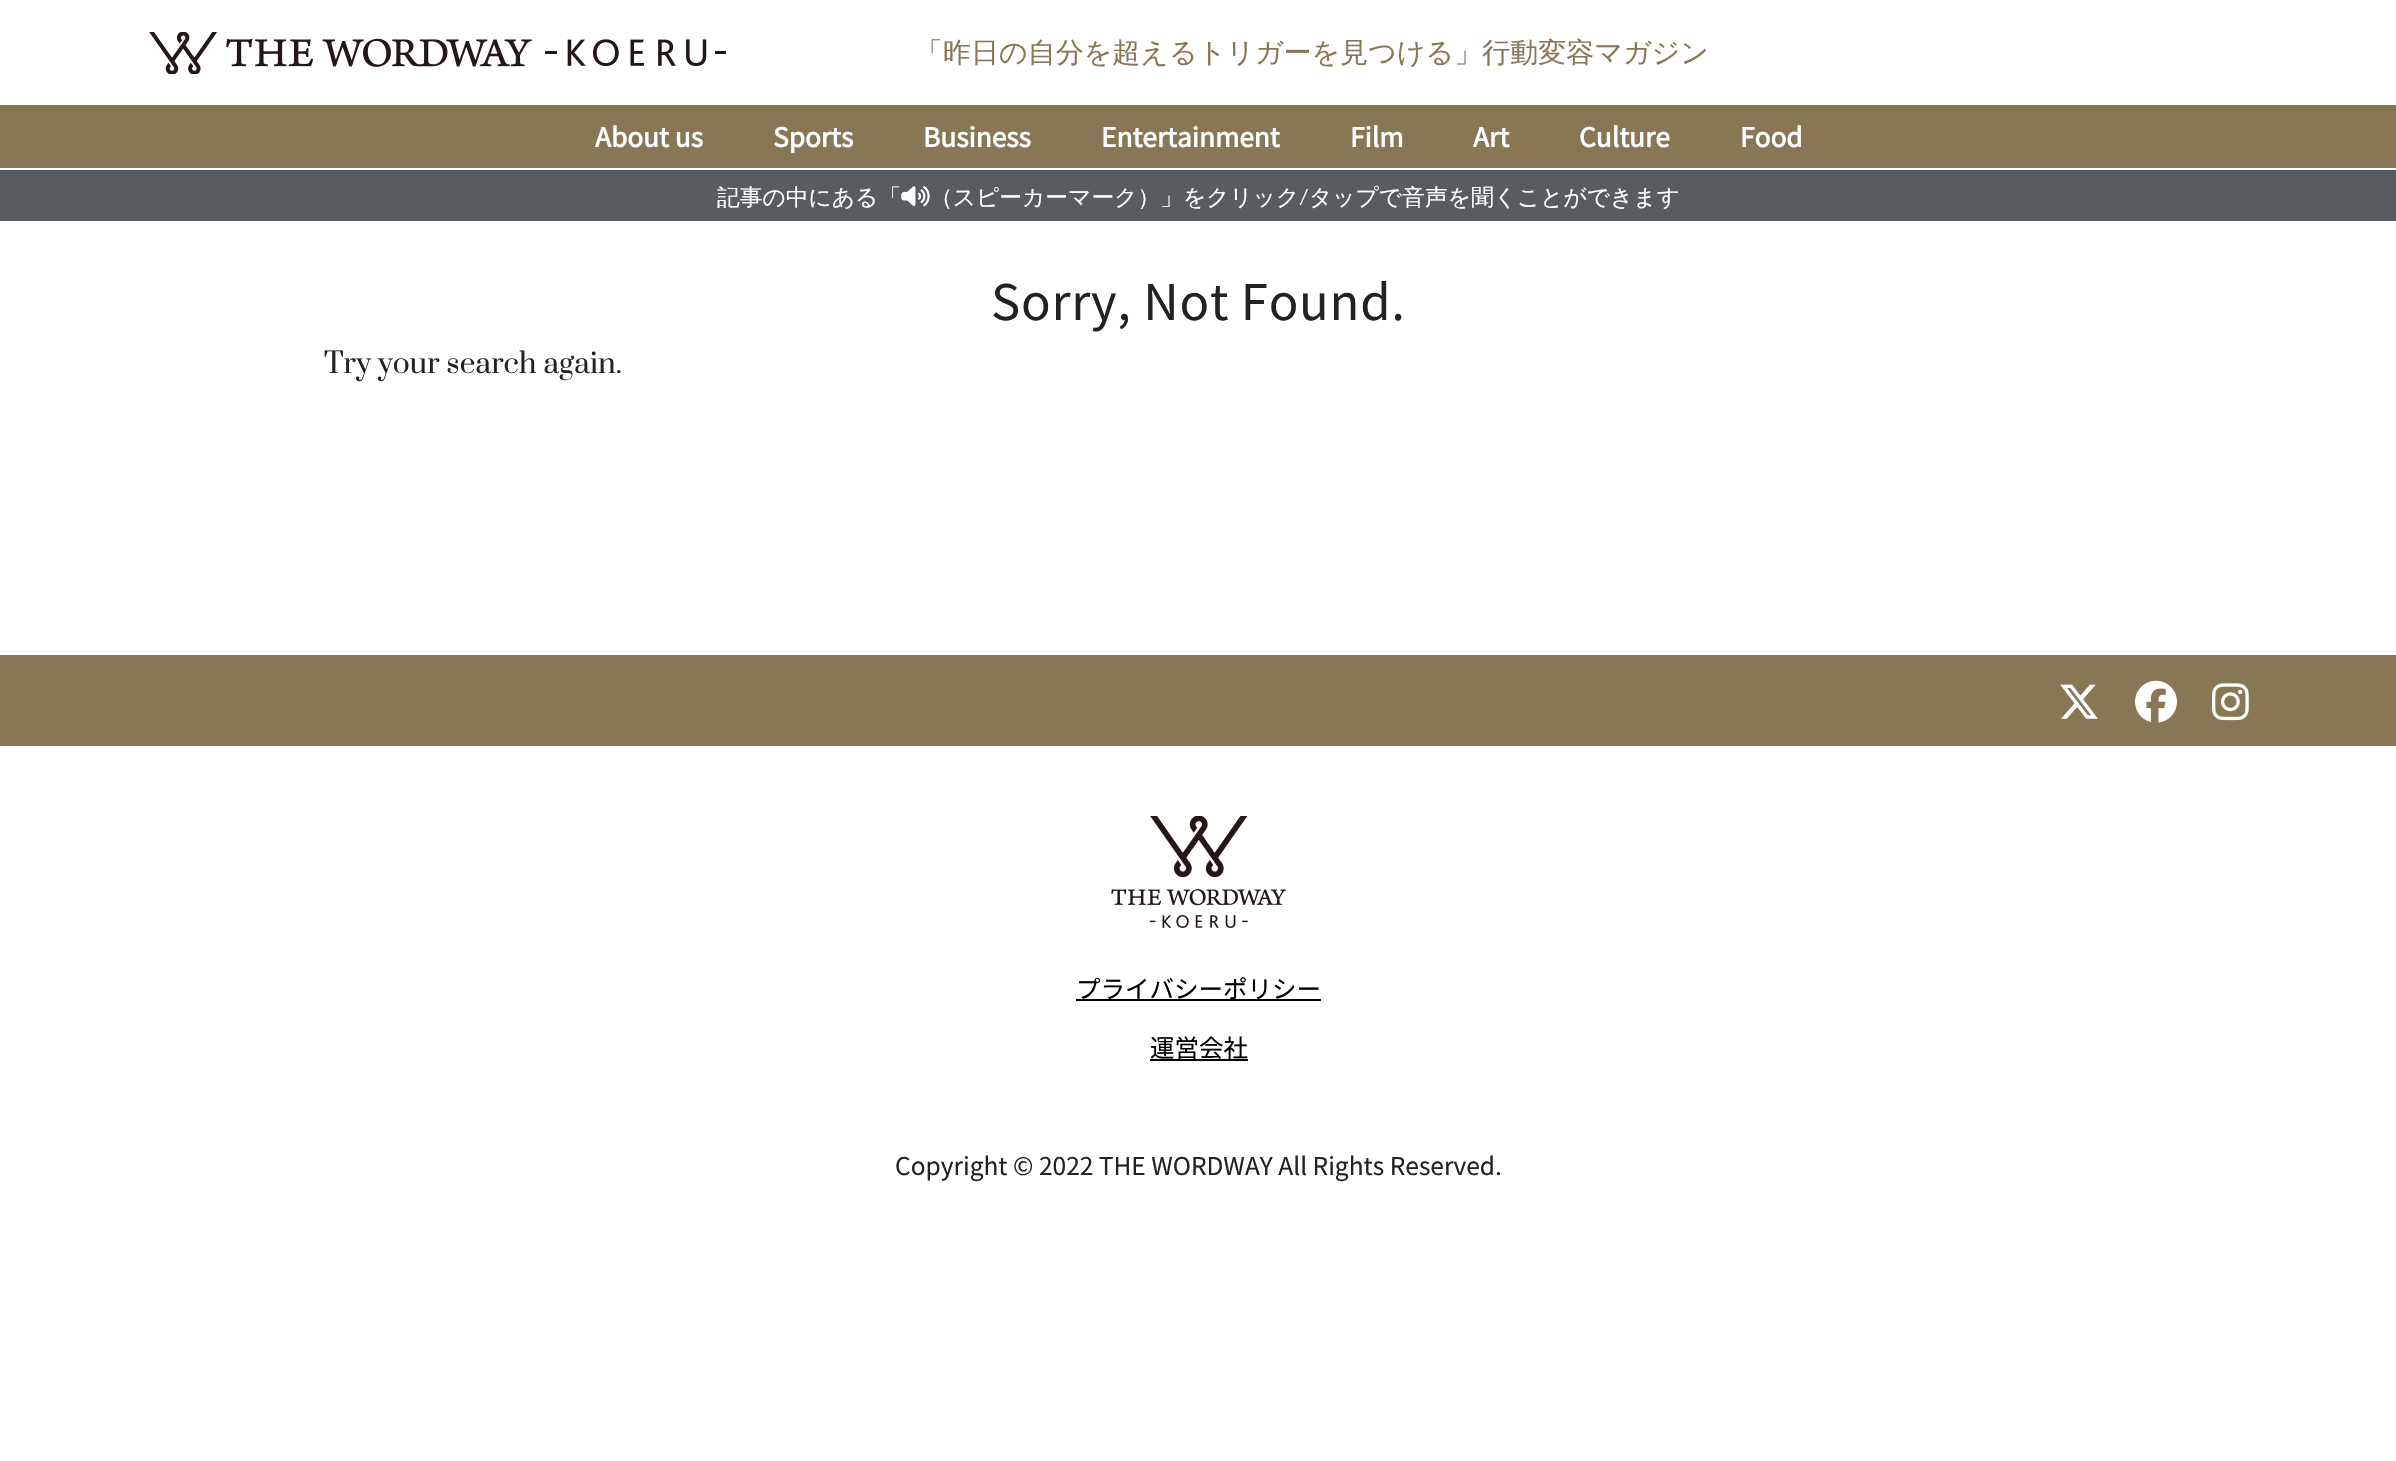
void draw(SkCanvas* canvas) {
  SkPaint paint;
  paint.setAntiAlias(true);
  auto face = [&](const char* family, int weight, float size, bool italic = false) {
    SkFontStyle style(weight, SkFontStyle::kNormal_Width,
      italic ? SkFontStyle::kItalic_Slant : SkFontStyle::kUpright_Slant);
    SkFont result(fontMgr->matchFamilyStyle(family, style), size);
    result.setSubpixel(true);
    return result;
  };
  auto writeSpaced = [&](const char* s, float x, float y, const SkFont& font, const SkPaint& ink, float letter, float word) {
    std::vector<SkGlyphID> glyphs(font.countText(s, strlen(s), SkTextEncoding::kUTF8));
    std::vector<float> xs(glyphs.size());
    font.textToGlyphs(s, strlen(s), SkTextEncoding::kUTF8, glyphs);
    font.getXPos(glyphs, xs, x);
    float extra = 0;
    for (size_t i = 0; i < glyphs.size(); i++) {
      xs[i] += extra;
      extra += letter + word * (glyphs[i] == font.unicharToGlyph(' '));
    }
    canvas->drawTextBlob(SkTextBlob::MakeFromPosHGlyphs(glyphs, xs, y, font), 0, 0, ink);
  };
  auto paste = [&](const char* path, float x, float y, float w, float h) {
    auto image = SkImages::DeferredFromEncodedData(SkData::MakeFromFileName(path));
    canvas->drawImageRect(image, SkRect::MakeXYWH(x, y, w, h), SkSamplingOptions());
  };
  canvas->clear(0xffffffff);
  paste("img/1.png", 149, 32, 577, 42);
  paint.setColor(0xff897655);
  canvas->drawRect(SkRect::MakeXYWH(0, 105, 2396, 63), paint);
  paint.setColor(0xff595c5f);
  canvas->drawRect(SkRect::MakeXYWH(0, 170, 2396, 51), paint);
  paste("img/2.png", 901, 186, 29, 21);
  paint.setColor(0xff897655);
  canvas->drawRect(SkRect::MakeXYWH(0, 655, 2396, 91), paint);
  paste("img/3.png", 2060, 684, 38, 35);
  paste("img/4.png", 2135, 680, 42, 43);
  paste("img/5.png", 2212, 683, 37, 38);
  paste("img/6.png", 1111, 816, 175, 112);
  paint.setColor(0xff000000);
  canvas->drawRect(SkRect::MakeXYWH(1076, 999, 245, 2), paint);
  canvas->drawRect(SkRect::MakeXYWH(1150, 1059, 98, 2), paint);
  auto f0 = face("WenQuanYi Zen Hei", 500, 28);
  paint.setColor(0xff897655);
  canvas->drawString("「昨日の自分を超えるトリガーを見つける」行動変容マガジン", 915, 62, f0, paint);
  auto f1 = face("Noto Sans JP", 700, 26.25f);
  paint.setColor(0xffffffff);
  {
    const struct { const char* s; float x, y; } items[] = {
      {"About us", 595, 147},
      {"Sports", 773, 147},
      {"Business", 923, 147},
      {"Entertainment", 1101, 147},
      {"Film", 1350, 147},
      {"Art", 1473, 147},
      {"Culture", 1579, 147},
      {"Food", 1740, 147},
    };
    for (auto [s, x, y] : items) {
      canvas->drawString(s, x, y, f1, paint);
    }
  }
  auto f2 = face("WenQuanYi Zen Hei", 500, 22.75f);
  canvas->drawString("記事の中にある「", 717, 205, f2, paint);
  canvas->drawString("（スピーカーマーク）」をクリック", 930, 205, f2, paint);
  auto f3 = face("Prata", 400, 22.75f);
  canvas->drawString("/", 1299, 205, f3, paint);
  canvas->drawString("タップで音声を聞くことができます", 1309, 205, f2, paint);
  auto f4 = face("Noto Sans JP", 100, 49);
  paint.setColor(0xff222222);
  writeSpaced("Sorry, Not Found.", 991, 320, f4, paint, 0.75f, 0);
  auto f5 = face("Prata", 400, 28);
  canvas->drawString("Try your search again.", 324, 373, f5, paint);
  auto f6 = face("Noto Sans JP", 100, 24.5f);
  paint.setColor(0xff000000);
  canvas->drawString("プライバシーポリシー", 1076, 998, f6, paint);
  canvas->drawString("運営会社", 1150, 1057, f6, paint);
  paint.setColor(0xff222222);
  canvas->drawString("Copyright © 2022 THE WORDWAY All Rights Reserved.", 895, 1175, f6, paint);
}
